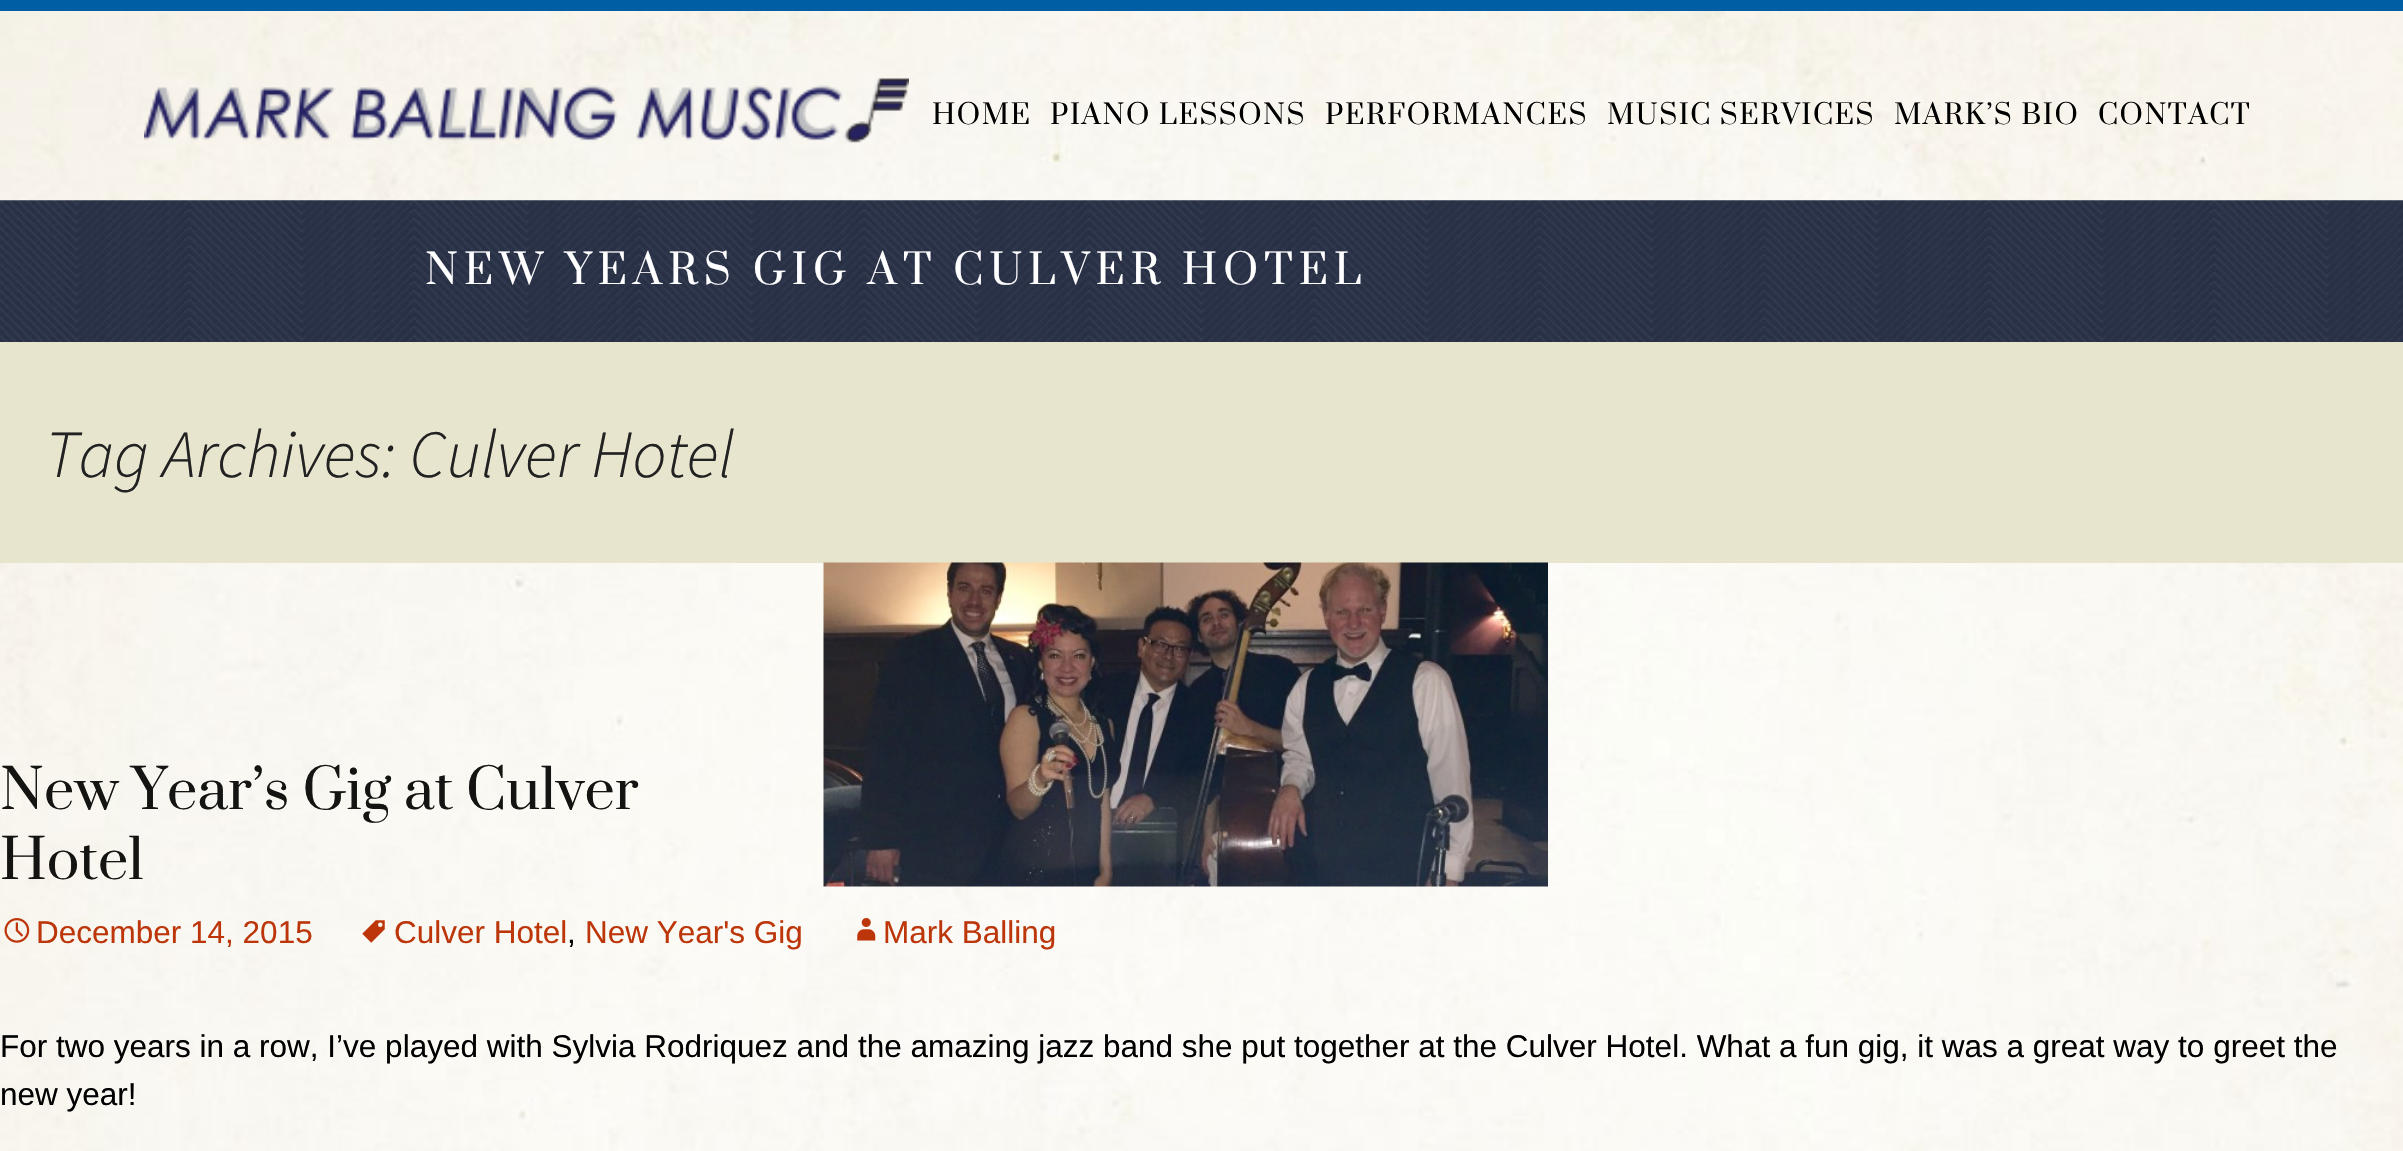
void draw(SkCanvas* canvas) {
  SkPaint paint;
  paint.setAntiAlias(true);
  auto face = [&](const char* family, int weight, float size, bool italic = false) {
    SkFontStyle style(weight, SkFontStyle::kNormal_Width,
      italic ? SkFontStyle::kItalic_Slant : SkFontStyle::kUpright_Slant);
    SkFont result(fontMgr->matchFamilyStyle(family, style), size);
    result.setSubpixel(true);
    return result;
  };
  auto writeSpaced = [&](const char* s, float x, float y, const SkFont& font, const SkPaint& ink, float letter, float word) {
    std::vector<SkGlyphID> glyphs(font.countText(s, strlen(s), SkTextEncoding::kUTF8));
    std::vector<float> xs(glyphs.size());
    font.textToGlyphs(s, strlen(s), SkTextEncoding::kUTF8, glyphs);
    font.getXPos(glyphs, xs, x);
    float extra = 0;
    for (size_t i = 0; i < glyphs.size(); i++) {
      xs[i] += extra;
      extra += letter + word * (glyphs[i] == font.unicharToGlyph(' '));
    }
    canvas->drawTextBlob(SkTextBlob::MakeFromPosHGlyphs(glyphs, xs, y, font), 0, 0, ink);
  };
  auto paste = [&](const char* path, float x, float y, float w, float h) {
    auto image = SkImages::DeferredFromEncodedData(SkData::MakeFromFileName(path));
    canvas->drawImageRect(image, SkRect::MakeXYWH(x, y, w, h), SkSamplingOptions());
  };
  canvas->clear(0xffffffff);
  paste("img/1.png", 0, 11, 2403, 1140);
  paint.setColor(0xff005ea4);
  canvas->drawRect(SkRect::MakeXYWH(0, 0, 2403, 11), paint);
  paste("img/2.png", 144, 78, 765, 65);
  paste("img/3.png", 0, 200, 2403, 142);
  paint.setColor(0xffe8e5ce);
  canvas->drawRect(SkRect::MakeXYWH(0, 342, 2403, 221), paint);
  paste("img/4.png", 823, 562, 725, 325);
  paste("img/5.png", 4, 918, 26, 25);
  paste("img/6.png", 362, 920, 23, 23);
  paste("img/7.png", 857, 918, 19, 23);
  auto f0 = face("Prata", 400, 27);
  paint.setColor(0xff000000);
  {
    const struct { const char* s; float x, y; } items[] = {
      {"HOME", 932, 124},
      {"PIANO LESSONS", 1050, 124},
      {"PERFORMANCES", 1325, 124},
      {"MUSIC SERVICES", 1607, 124},
      {"MARK’S BIO", 1894, 124},
      {"CONTACT", 2098, 124},
    };
    for (auto [s, x, y] : items) {
      writeSpaced(s, x, y, f0, paint, 1.5f, 0);
    }
  }
  auto f1 = face("Prata", 400, 40.5f);
  paint.setColor(0xffffffff);
  writeSpaced("NEW YEARS GIG AT CULVER HOTEL", 425, 284, f1, paint, 6.1f, 0);
  auto f2 = face("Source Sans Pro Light", 300, 67.5f, true);
  paint.setColor(0xff222222);
  canvas->drawString("Tag Archives: Culver Hotel", 45, 477, f2, paint);
  auto f3 = face("Prata", 400, 54);
  paint.setColor(0xff141412);
  canvas->drawString("New Year’s Gig at Culver", 0, 809, f3, paint);
  canvas->drawString("Hotel", 0, 879, f3, paint);
  auto f4 = face("Liberation Sans", 400, 31.5f);
  paint.setColor(0xffbc360a);
  canvas->drawString("December 14, 2015", 36, 943, f4, paint);
  canvas->drawString("Culver Hotel", 394, 943, f4, paint);
  paint.setColor(0xff000000);
  canvas->drawString(",", 567, 943, f4, paint);
  paint.setColor(0xffbc360a);
  canvas->drawString("New Year's Gig", 585, 943, f4, paint);
  canvas->drawString("Mark Balling", 883, 943, f4, paint);
  paint.setColor(0xff000000);
  canvas->drawString("For two years in a row, I’ve played with Sylvia Rodriquez and the amazing jazz band she put together at the Culver Hotel. What a fun gig, it was a great way to greet the", 0, 1057, f4, paint);
  canvas->drawString("new year!", 0, 1105, f4, paint);
}
